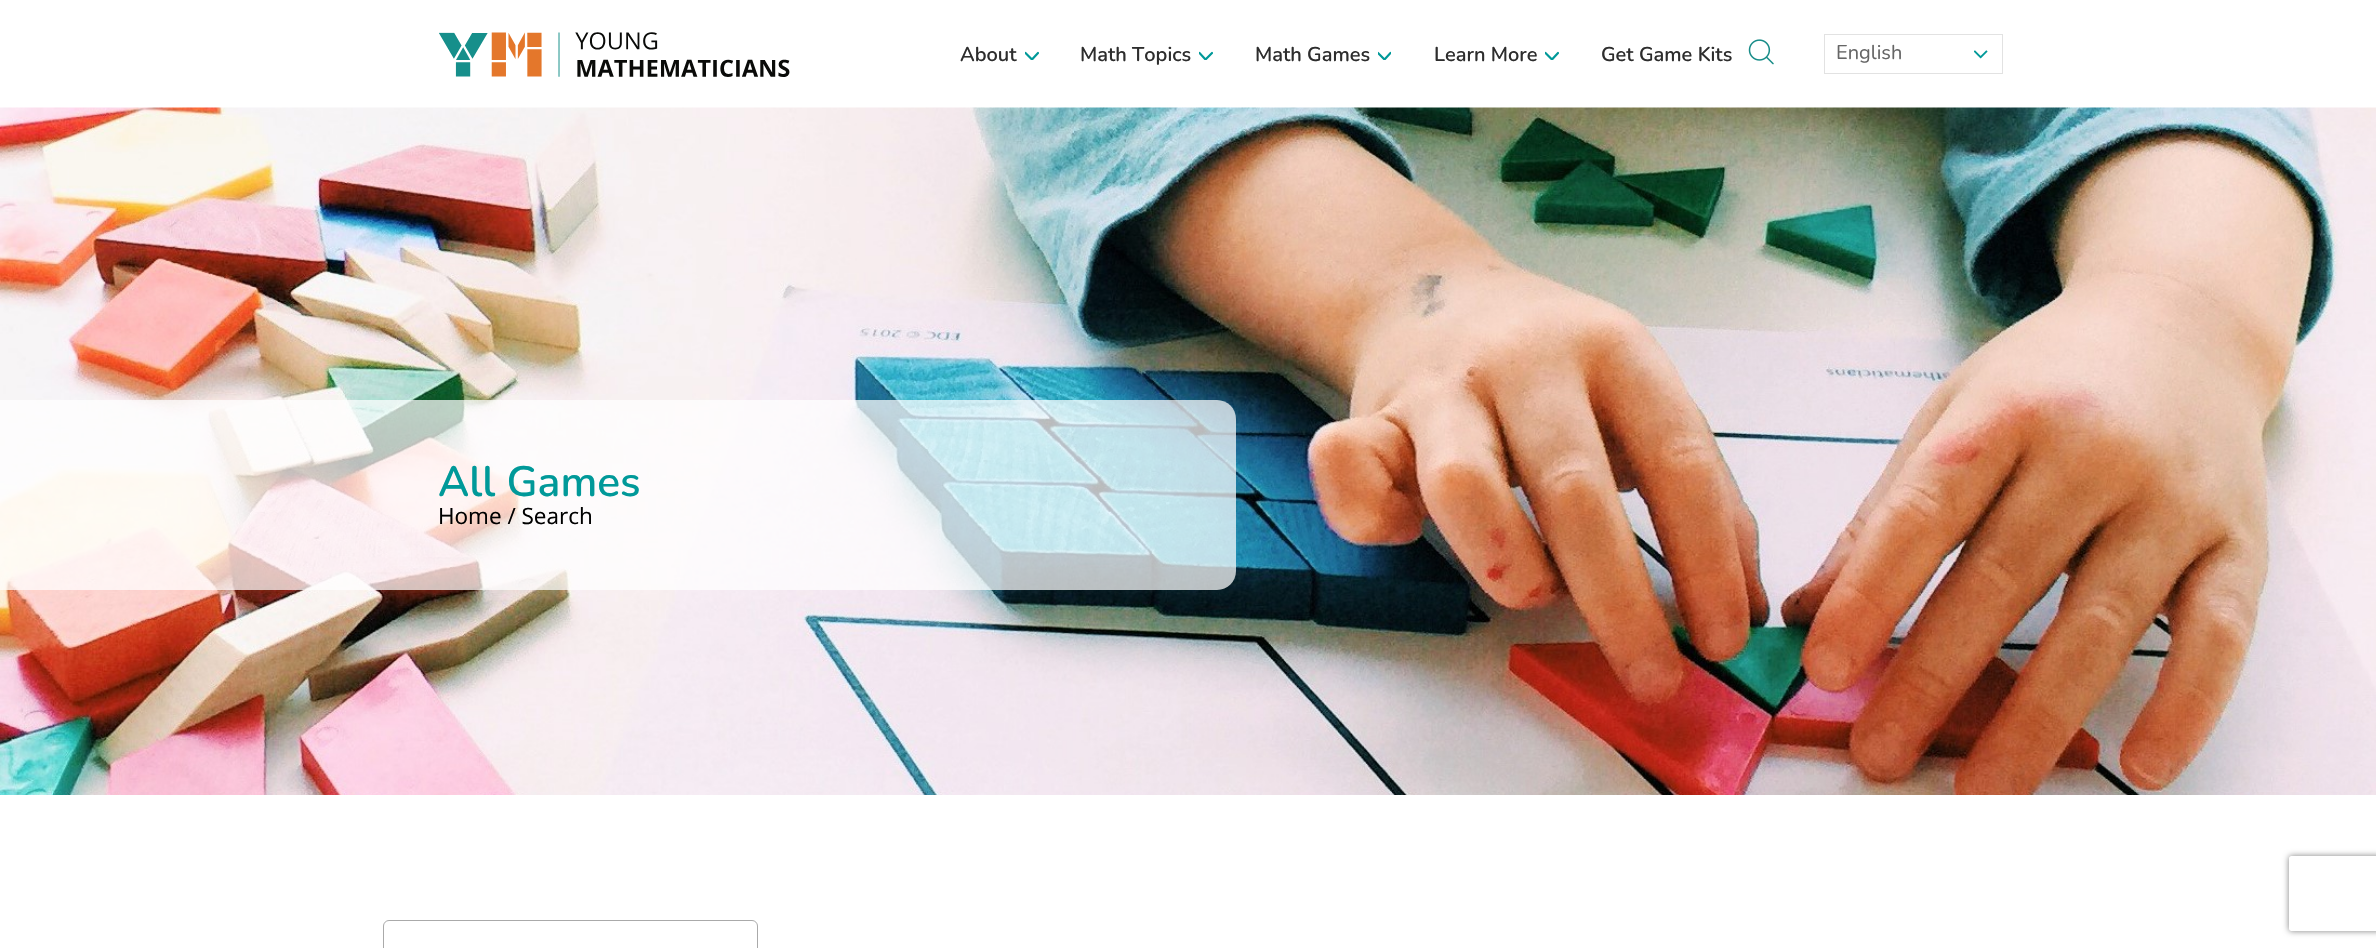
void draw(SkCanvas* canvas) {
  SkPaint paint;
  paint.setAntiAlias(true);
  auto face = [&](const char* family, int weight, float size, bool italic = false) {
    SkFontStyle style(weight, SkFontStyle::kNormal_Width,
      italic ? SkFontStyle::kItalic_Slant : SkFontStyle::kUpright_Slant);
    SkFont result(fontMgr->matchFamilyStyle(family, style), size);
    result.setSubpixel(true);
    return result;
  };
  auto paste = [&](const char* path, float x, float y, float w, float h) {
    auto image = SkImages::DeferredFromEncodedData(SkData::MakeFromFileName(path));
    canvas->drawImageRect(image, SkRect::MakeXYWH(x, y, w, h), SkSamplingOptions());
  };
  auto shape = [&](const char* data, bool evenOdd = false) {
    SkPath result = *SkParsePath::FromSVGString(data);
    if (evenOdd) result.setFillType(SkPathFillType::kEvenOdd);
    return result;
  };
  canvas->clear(0xffffffff);
  paste("img/1.png", 439, 32, 351, 45);
  canvas->save();
  canvas->clipRect(SkRect::MakeXYWH(1025, 49, 14, 11));
  paint.setStroke(true);
  paint.setStrokeWidth(2.2f);
  paint.setStrokeCap(SkPaint::kRound_Cap);
  paint.setStrokeJoin(SkPaint::kRound_Join);
  paint.setColor(0xff009999);
  canvas->drawPath(shape("M1038 53L1032 59.5L1025.5 53"), paint);
  canvas->restore();
  canvas->save();
  canvas->clipRect(SkRect::MakeXYWH(1199, 49, 14, 11));
  canvas->drawPath(shape("M1212 53L1205.5 59.5L1199.5 53"), paint);
  canvas->restore();
  canvas->save();
  canvas->clipRect(SkRect::MakeXYWH(1378, 49, 13, 11));
  canvas->drawPath(shape("M1390.5 53L1384.5 59.5L1378 53"), paint);
  canvas->restore();
  canvas->save();
  canvas->clipRect(SkRect::MakeXYWH(1545, 49, 14, 11));
  canvas->drawPath(shape("M1558 53L1552 59.5L1545.5 53"), paint);
  canvas->restore();
  paste("img/2.png", 1748, 39, 26, 26);
  paint.setStrokeWidth(1);
  paint.setStrokeCap(SkPaint::kButt_Cap);
  paint.setStrokeJoin(SkPaint::kMiter_Join);
  paint.setColor(0xffe2e2e2);
  canvas->drawRect(SkRect::MakeXYWH(1824.5f, 34.5f, 178, 39), paint);
  paste("img/3.png", 1974, 50, 14, 9);
  paste("img/4.png", 0, 107, 2376, 688);
  paint.setStroke(false);
  paint.setColor(0xb8ffffff);
  canvas->drawPath(shape("M0 400H1217C1227.5 400 1236 408.5 1236 419V571C1236 581.5 1227.5 590 1217 590H0Z"), paint);
  paint.setStroke(true);
  paint.setColor(0xffaaaaaa);
  canvas->drawRoundRect(SkRect::MakeXYWH(383.5f, 920.5f, 374, 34), 5.5f, 5.5f, paint);
  canvas->save();
  canvas->clipPath(shape("M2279 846H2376V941H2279ZM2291.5 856H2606.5C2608 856 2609 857 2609 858.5V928.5C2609 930 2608 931 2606.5 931H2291.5C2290 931 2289 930 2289 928.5V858.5C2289 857 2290 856 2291.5 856Z", true), true);
  paint.setStroke(false);
  paint.setColor(0xff808080);
  paint.setMaskFilter(SkMaskFilter::MakeBlur(kNormal_SkBlurStyle, 3));
  canvas->drawRoundRect(SkRect::MakeXYWH(2289, 856, 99, 75), 2.5f, 2.5f, paint);
  paint.setMaskFilter(nullptr);
  canvas->restore();
  auto f0 = face("Nunito", 600, 20);
  paint.setColor(0xff2d2d2d);
  {
    const struct { const char* s; float x, y; } items[] = {
      {"About", 960, 61},
      {"Math Topics", 1080, 61},
      {"Math Games", 1255, 61},
      {"Learn More", 1434, 61},
      {"Get Game Kits", 1601, 61},
    };
    for (auto [s, x, y] : items) {
      canvas->drawString(s, x, y, f0, paint);
    }
  }
  auto f1 = face("Nunito", 400, 20);
  paint.setColor(0xff666666);
  canvas->drawString("English", 1836, 59, f1, paint);
  auto f2 = face("Nunito", 600, 42.5f);
  paint.setColor(0xff009999);
  canvas->drawString("All Games", 438, 496, f2, paint);
  auto f3 = face("Open Sans", 400, 22.5f);
  paint.setColor(0xff000000);
  canvas->drawString("Home / Search", 438, 524, f3, paint);
}
